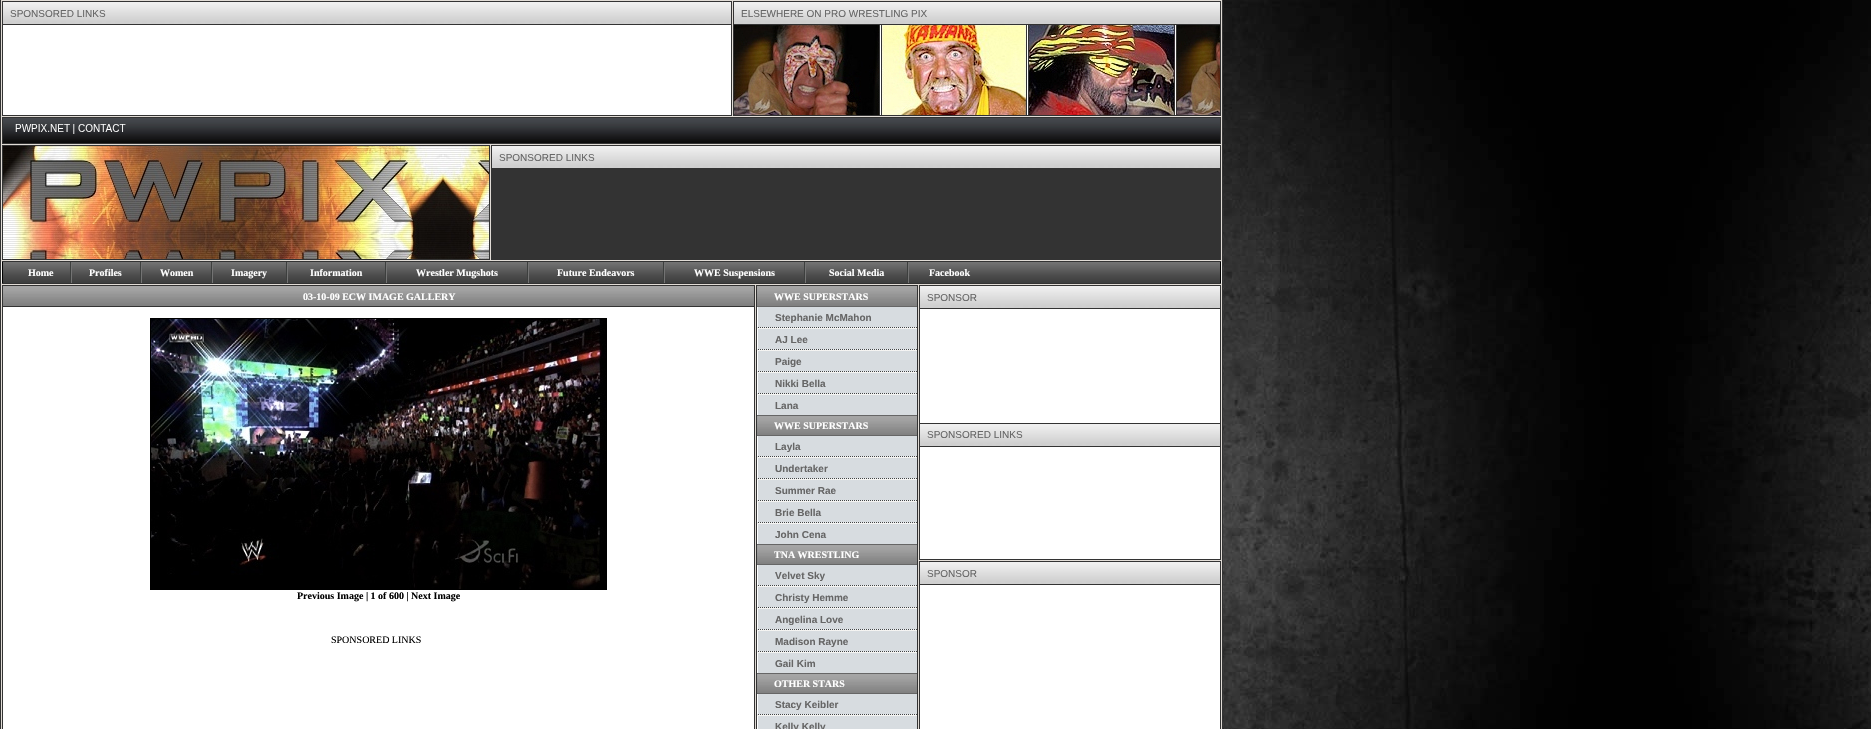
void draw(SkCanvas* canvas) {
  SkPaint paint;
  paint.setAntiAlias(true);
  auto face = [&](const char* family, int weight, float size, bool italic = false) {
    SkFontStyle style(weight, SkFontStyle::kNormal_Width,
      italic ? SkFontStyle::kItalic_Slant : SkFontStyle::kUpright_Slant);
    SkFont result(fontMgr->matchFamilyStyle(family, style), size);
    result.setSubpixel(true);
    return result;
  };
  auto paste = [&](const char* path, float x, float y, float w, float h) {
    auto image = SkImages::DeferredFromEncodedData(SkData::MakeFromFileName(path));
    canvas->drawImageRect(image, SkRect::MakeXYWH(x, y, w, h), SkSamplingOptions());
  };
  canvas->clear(0xffffffff);
  paste("img/1.png", 1223, 0, 648, 729);
  {
    const struct { float x, y, w, h; SkColor color; } items[] = {
      {1, 0, 1221, 729, 0xffe1dcd6},
      {0, 0, 1, 729, 0xff333333},
      {2, 1, 1, 115, 0xff333333},
      {3, 1, 728, 1, 0xff333333},
      {3, 25, 728, 90, 0xffffffff},
    };
    for (auto [x, y, w, h, color] : items) {
      paint.setColor(color);
      canvas->drawRect(SkRect::MakeXYWH(x, y, w, h), paint);
    }
  }
  paste("img/2.png", 3, 2, 728, 22);
  {
    const struct { float x, y, w, h; SkColor color; } items[] = {
      {3, 24, 728, 1, 0xff333333},
      {3, 115, 728, 1, 0xff333333},
      {731, 1, 1, 115, 0xff333333},
      {733, 1, 488, 1, 0xff333333},
      {733, 2, 1, 22, 0xff333333},
    };
    for (auto [x, y, w, h, color] : items) {
      paint.setColor(color);
      canvas->drawRect(SkRect::MakeXYWH(x, y, w, h), paint);
    }
  }
  paste("img/3.png", 734, 2, 486, 22);
  canvas->drawRect(SkRect::MakeXYWH(1220, 2, 1, 22), paint);
  canvas->drawRect(SkRect::MakeXYWH(733, 24, 488, 1), paint);
  paste("img/4.png", 734, 25, 486, 90);
  {
    const struct { float x, y, w, h; SkColor color; } items[] = {
      {733, 25, 1, 90, 0xff333333},
      {879, 25, 1, 90, 0xff333333},
      {881, 25, 1, 90, 0xff333333},
      {1026, 25, 1, 90, 0xff333333},
      {1028, 25, 1, 90, 0xff333333},
      {1220, 25, 1, 90, 0xff333333},
      {733, 115, 488, 1, 0xff333333},
      {1222, 0, 1, 729, 0xff333333},
      {2, 117, 1219, 1, 0xff333333},
      {2, 118, 1, 25, 0xff333333},
    };
    for (auto [x, y, w, h, color] : items) {
      paint.setColor(color);
      canvas->drawRect(SkRect::MakeXYWH(x, y, w, h), paint);
    }
  }
  paste("img/5.png", 3, 118, 1217, 25);
  {
    const struct { float x, y, w, h; SkColor color; } items[] = {
      {1220, 118, 1, 25, 0xff333333},
      {2, 143, 1219, 1, 0xff333333},
      {2, 145, 488, 1, 0xff333333},
      {491, 145, 730, 1, 0xff333333},
      {2, 146, 1, 113, 0xff333333},
    };
    for (auto [x, y, w, h, color] : items) {
      paint.setColor(color);
      canvas->drawRect(SkRect::MakeXYWH(x, y, w, h), paint);
    }
  }
  paste("img/6.png", 3, 146, 486, 113);
  canvas->drawRect(SkRect::MakeXYWH(489, 146, 1, 113), paint);
  canvas->drawRect(SkRect::MakeXYWH(491, 146, 1, 113), paint);
  paste("img/2.png", 492, 146, 728, 22);
  {
    const struct { float x, y, w, h; SkColor color; } items[] = {
      {492, 168, 728, 91, 0xff333333},
      {1220, 146, 1, 113, 0xff333333},
      {2, 259, 488, 1, 0xff333333},
      {491, 259, 730, 1, 0xff333333},
      {2, 261, 1219, 1, 0xff333333},
    };
    for (auto [x, y, w, h, color] : items) {
      paint.setColor(color);
      canvas->drawRect(SkRect::MakeXYWH(x, y, w, h), paint);
    }
  }
  paste("img/7.png", 3, 262, 1217, 21);
  paint.setColor(0xfff0efeb);
  canvas->drawRect(SkRect::MakeXYWH(1, 262, 1, 21), paint);
  paint.setColor(0xff000000);
  canvas->drawRect(SkRect::MakeXYWH(2, 262, 1, 21), paint);
  paste("img/8.png", 70, 262, 2, 21);
  paste("img/8.png", 140, 262, 2, 21);
  paste("img/8.png", 211, 262, 2, 21);
  paste("img/8.png", 286, 262, 2, 21);
  paste("img/8.png", 385, 262, 2, 21);
  paste("img/8.png", 527, 262, 2, 21);
  paste("img/8.png", 663, 262, 2, 21);
  paste("img/8.png", 804, 262, 2, 21);
  paste("img/8.png", 907, 262, 2, 21);
  {
    const struct { float x, y, w, h; SkColor color; } items[] = {
      {1220, 262, 1, 21, 0xff000000},
      {1221, 262, 1, 21, 0xfff0efeb},
      {2, 283, 1219, 1, 0xff333333},
      {2, 285, 1, 444, 0xff333333},
      {3, 307, 751, 422, 0xffffffff},
      {3, 285, 751, 1, 0xff333333},
    };
    for (auto [x, y, w, h, color] : items) {
      paint.setColor(color);
      canvas->drawRect(SkRect::MakeXYWH(x, y, w, h), paint);
    }
  }
  paste("img/9.png", 3, 286, 751, 20);
  canvas->drawRect(SkRect::MakeXYWH(3, 306, 751, 1), paint);
  paint.setStroke(true);
  paint.setStrokeWidth(1);
  paint.setColor(0xff000000);
  canvas->drawRect(SkRect::MakeXYWH(150.5f, 318.5f, 456, 271), paint);
  paste("img/10.png", 151, 319, 455, 270);
  paint.setStroke(false);
  {
    const struct { float x, y, w, h; SkColor color; } items[] = {
      {754, 285, 1, 444, 0xff333333},
      {756, 285, 1, 444, 0xff333333},
      {757, 285, 160, 1, 0xff333333},
    };
    for (auto [x, y, w, h, color] : items) {
      paint.setColor(color);
      canvas->drawRect(SkRect::MakeXYWH(x, y, w, h), paint);
    }
  }
  paste("img/11.png", 757, 286, 160, 20);
  {
    const struct { float x, y, w, h; SkColor color; } items[] = {
      {757, 306, 160, 1, 0xff666666},
      {757, 307, 1, 20, 0xffffffff},
      {758, 307, 159, 20, 0xffd7dce0},
    };
    for (auto [x, y, w, h, color] : items) {
      paint.setColor(color);
      canvas->drawRect(SkRect::MakeXYWH(x, y, w, h), paint);
    }
  }
  paste("img/12.png", 757, 327, 160, 2);
  paint.setColor(0xffffffff);
  canvas->drawRect(SkRect::MakeXYWH(757, 329, 1, 20), paint);
  paint.setColor(0xffd7dce0);
  canvas->drawRect(SkRect::MakeXYWH(758, 329, 159, 20), paint);
  paste("img/12.png", 757, 349, 160, 2);
  paint.setColor(0xffffffff);
  canvas->drawRect(SkRect::MakeXYWH(757, 351, 1, 20), paint);
  paint.setColor(0xffd7dce0);
  canvas->drawRect(SkRect::MakeXYWH(758, 351, 159, 20), paint);
  paste("img/12.png", 757, 371, 160, 2);
  paint.setColor(0xffffffff);
  canvas->drawRect(SkRect::MakeXYWH(757, 373, 1, 20), paint);
  paint.setColor(0xffd7dce0);
  canvas->drawRect(SkRect::MakeXYWH(758, 373, 159, 20), paint);
  paste("img/12.png", 757, 393, 160, 2);
  {
    const struct { float x, y, w, h; SkColor color; } items[] = {
      {757, 395, 1, 20, 0xffffffff},
      {758, 395, 159, 20, 0xffd7dce0},
      {757, 415, 160, 1, 0xff666666},
    };
    for (auto [x, y, w, h, color] : items) {
      paint.setColor(color);
      canvas->drawRect(SkRect::MakeXYWH(x, y, w, h), paint);
    }
  }
  paste("img/13.png", 757, 416, 160, 19);
  {
    const struct { float x, y, w, h; SkColor color; } items[] = {
      {757, 435, 160, 1, 0xff666666},
      {757, 436, 1, 20, 0xffffffff},
      {758, 436, 159, 20, 0xffd7dce0},
    };
    for (auto [x, y, w, h, color] : items) {
      paint.setColor(color);
      canvas->drawRect(SkRect::MakeXYWH(x, y, w, h), paint);
    }
  }
  paste("img/12.png", 757, 456, 160, 2);
  paint.setColor(0xffffffff);
  canvas->drawRect(SkRect::MakeXYWH(757, 458, 1, 20), paint);
  paint.setColor(0xffd7dce0);
  canvas->drawRect(SkRect::MakeXYWH(758, 458, 159, 20), paint);
  paste("img/12.png", 757, 478, 160, 2);
  paint.setColor(0xffffffff);
  canvas->drawRect(SkRect::MakeXYWH(757, 480, 1, 20), paint);
  paint.setColor(0xffd7dce0);
  canvas->drawRect(SkRect::MakeXYWH(758, 480, 159, 20), paint);
  paste("img/12.png", 757, 500, 160, 2);
  paint.setColor(0xffffffff);
  canvas->drawRect(SkRect::MakeXYWH(757, 502, 1, 20), paint);
  paint.setColor(0xffd7dce0);
  canvas->drawRect(SkRect::MakeXYWH(758, 502, 159, 20), paint);
  paste("img/12.png", 757, 522, 160, 2);
  {
    const struct { float x, y, w, h; SkColor color; } items[] = {
      {757, 524, 1, 20, 0xffffffff},
      {758, 524, 159, 20, 0xffd7dce0},
      {757, 544, 160, 1, 0xff666666},
    };
    for (auto [x, y, w, h, color] : items) {
      paint.setColor(color);
      canvas->drawRect(SkRect::MakeXYWH(x, y, w, h), paint);
    }
  }
  paste("img/13.png", 757, 545, 160, 19);
  {
    const struct { float x, y, w, h; SkColor color; } items[] = {
      {757, 564, 160, 1, 0xff666666},
      {757, 565, 1, 20, 0xffffffff},
      {758, 565, 159, 20, 0xffd7dce0},
    };
    for (auto [x, y, w, h, color] : items) {
      paint.setColor(color);
      canvas->drawRect(SkRect::MakeXYWH(x, y, w, h), paint);
    }
  }
  paste("img/12.png", 757, 585, 160, 2);
  paint.setColor(0xffffffff);
  canvas->drawRect(SkRect::MakeXYWH(757, 587, 1, 20), paint);
  paint.setColor(0xffd7dce0);
  canvas->drawRect(SkRect::MakeXYWH(758, 587, 159, 20), paint);
  paste("img/12.png", 757, 607, 160, 2);
  paint.setColor(0xffffffff);
  canvas->drawRect(SkRect::MakeXYWH(757, 609, 1, 20), paint);
  paint.setColor(0xffd7dce0);
  canvas->drawRect(SkRect::MakeXYWH(758, 609, 159, 20), paint);
  paste("img/12.png", 757, 629, 160, 2);
  paint.setColor(0xffffffff);
  canvas->drawRect(SkRect::MakeXYWH(757, 631, 1, 20), paint);
  paint.setColor(0xffd7dce0);
  canvas->drawRect(SkRect::MakeXYWH(758, 631, 159, 20), paint);
  paste("img/12.png", 757, 651, 160, 2);
  {
    const struct { float x, y, w, h; SkColor color; } items[] = {
      {757, 653, 1, 20, 0xffffffff},
      {758, 653, 159, 20, 0xffd7dce0},
      {757, 673, 160, 1, 0xff666666},
    };
    for (auto [x, y, w, h, color] : items) {
      paint.setColor(color);
      canvas->drawRect(SkRect::MakeXYWH(x, y, w, h), paint);
    }
  }
  paste("img/13.png", 757, 674, 160, 19);
  {
    const struct { float x, y, w, h; SkColor color; } items[] = {
      {757, 693, 160, 1, 0xff666666},
      {757, 694, 1, 20, 0xffffffff},
      {758, 694, 159, 20, 0xffd7dce0},
    };
    for (auto [x, y, w, h, color] : items) {
      paint.setColor(color);
      canvas->drawRect(SkRect::MakeXYWH(x, y, w, h), paint);
    }
  }
  paste("img/12.png", 757, 714, 160, 2);
  {
    const struct { float x, y, w, h; SkColor color; } items[] = {
      {757, 716, 1, 13, 0xffffffff},
      {758, 716, 159, 13, 0xffd7dce0},
      {917, 285, 1, 444, 0xff333333},
      {919, 285, 302, 1, 0xff333333},
      {919, 286, 1, 22, 0xff333333},
    };
    for (auto [x, y, w, h, color] : items) {
      paint.setColor(color);
      canvas->drawRect(SkRect::MakeXYWH(x, y, w, h), paint);
    }
  }
  paste("img/14.png", 920, 286, 300, 22);
  {
    const struct { float x, y, w, h; SkColor color; } items[] = {
      {1220, 286, 1, 22, 0xff333333},
      {919, 308, 302, 1, 0xff333333},
      {919, 309, 1, 250, 0xff333333},
      {920, 309, 300, 250, 0xffffffff},
      {920, 423, 300, 1, 0xff333333},
    };
    for (auto [x, y, w, h, color] : items) {
      paint.setColor(color);
      canvas->drawRect(SkRect::MakeXYWH(x, y, w, h), paint);
    }
  }
  paste("img/14.png", 920, 424, 300, 22);
  {
    const struct { float x, y, w, h; SkColor color; } items[] = {
      {920, 446, 300, 1, 0xff333333},
      {1220, 309, 1, 250, 0xff333333},
      {919, 559, 302, 1, 0xff333333},
      {919, 561, 302, 1, 0xff333333},
      {919, 562, 1, 22, 0xff333333},
    };
    for (auto [x, y, w, h, color] : items) {
      paint.setColor(color);
      canvas->drawRect(SkRect::MakeXYWH(x, y, w, h), paint);
    }
  }
  paste("img/14.png", 920, 562, 300, 22);
  {
    const struct { float x, y, w, h; SkColor color; } items[] = {
      {1220, 562, 1, 22, 0xff333333},
      {919, 584, 302, 1, 0xff333333},
      {919, 585, 1, 144, 0xff333333},
      {920, 585, 300, 144, 0xffffffff},
      {1220, 585, 1, 144, 0xff333333},
    };
    for (auto [x, y, w, h, color] : items) {
      paint.setColor(color);
      canvas->drawRect(SkRect::MakeXYWH(x, y, w, h), paint);
    }
  }
  auto f0 = face("Liberation Sans", 400, 10);
  paint.setColor(0xff666666);
  {
    const struct { const char* s; float x, y; } items[] = {
      {"SPONSORED LINKS", 10, 17},
      {"ELSEWHERE ON PRO WRESTLING PIX", 741, 17},
      {"SPONSORED LINKS", 499, 161},
    };
    for (auto [s, x, y] : items) {
      canvas->drawString(s, x, y, f0, paint);
    }
  }
  auto f1 = face("Liberation Serif", 700, 10);
  paint.setColor(0xffffffff);
  {
    const struct { const char* s; float x, y; } items[] = {
      {"Home", 28, 276},
      {"Profiles", 89, 276},
      {"Women", 160, 276},
      {"Imagery", 231, 276},
      {"Information", 310, 276},
      {"Wrestler Mugshots", 416, 276},
      {"Future Endeavors", 557, 276},
      {"WWE Suspensions", 694, 276},
      {"Social Media", 829, 276},
      {"Facebook", 929, 276},
      {"03-10-09 ECW IMAGE GALLERY", 303, 300},
    };
    for (auto [s, x, y] : items) {
      canvas->drawString(s, x, y, f1, paint);
    }
  }
  paint.setColor(0xff000000);
  canvas->drawString("Previous Image | 1 of 600 | Next Image", 297, 599, f1, paint);
  auto f2 = face("Liberation Serif", 400, 10);
  canvas->drawString("SPONSORED LINKS", 331, 643, f2, paint);
  paint.setColor(0xffffffff);
  canvas->drawString("WWE SUPERSTARS", 774, 300, f1, paint);
  auto f3 = face("Liberation Sans", 700, 10);
  paint.setColor(0xff666666);
  {
    const struct { const char* s; float x, y; } items[] = {
      {"Stephanie McMahon", 775, 321},
      {"AJ Lee", 775, 343},
      {"Paige", 775, 365},
      {"Nikki Bella", 775, 387},
      {"Lana", 775, 409},
    };
    for (auto [s, x, y] : items) {
      canvas->drawString(s, x, y, f3, paint);
    }
  }
  paint.setColor(0xffffffff);
  canvas->drawString("WWE SUPERSTARS", 774, 429, f1, paint);
  paint.setColor(0xff666666);
  {
    const struct { const char* s; float x, y; } items[] = {
      {"Layla", 775, 450},
      {"Undertaker", 775, 472},
      {"Summer Rae", 775, 494},
      {"Brie Bella", 775, 516},
      {"John Cena", 775, 538},
    };
    for (auto [s, x, y] : items) {
      canvas->drawString(s, x, y, f3, paint);
    }
  }
  paint.setColor(0xffffffff);
  canvas->drawString("TNA WRESTLING", 774, 558, f1, paint);
  paint.setColor(0xff666666);
  {
    const struct { const char* s; float x, y; } items[] = {
      {"Velvet Sky", 775, 579},
      {"Christy Hemme", 775, 601},
      {"Angelina Love", 775, 623},
      {"Madison Rayne", 775, 645},
      {"Gail Kim", 775, 667},
    };
    for (auto [s, x, y] : items) {
      canvas->drawString(s, x, y, f3, paint);
    }
  }
  paint.setColor(0xffffffff);
  canvas->drawString("OTHER STARS", 774, 687, f1, paint);
  paint.setColor(0xff666666);
  canvas->drawString("Stacy Keibler", 775, 708, f3, paint);
  canvas->drawString("Kelly Kelly", 775, 730, f3, paint);
  {
    const struct { const char* s; float x, y; } items[] = {
      {"SPONSOR", 927, 301},
      {"SPONSORED LINKS", 927, 438},
      {"SPONSOR", 927, 577},
    };
    for (auto [s, x, y] : items) {
      canvas->drawString(s, x, y, f0, paint);
    }
  }
}
